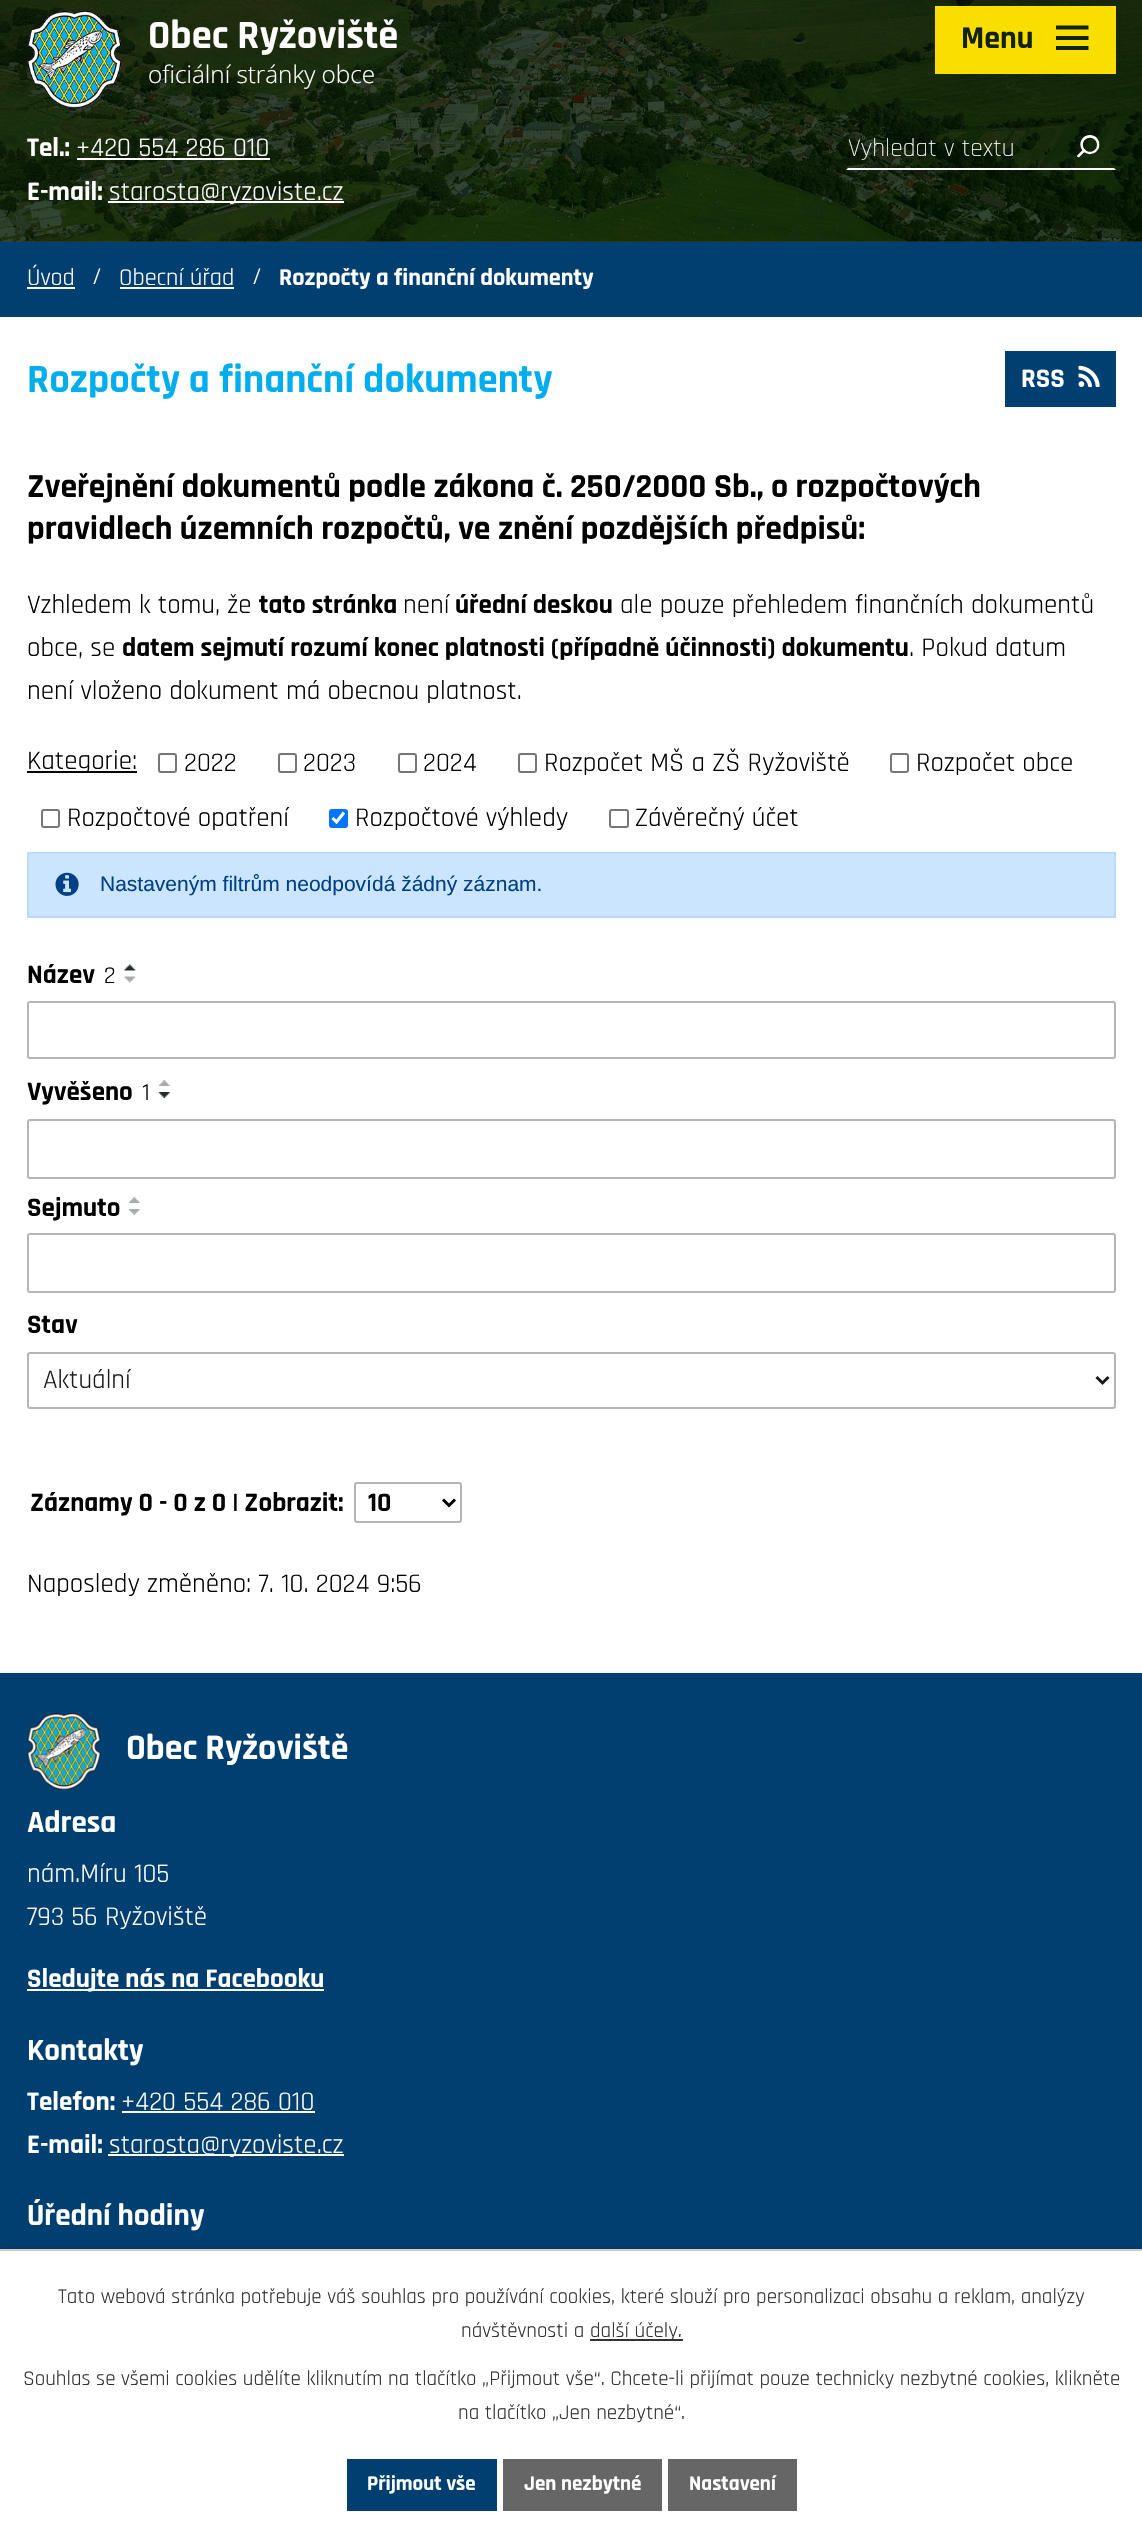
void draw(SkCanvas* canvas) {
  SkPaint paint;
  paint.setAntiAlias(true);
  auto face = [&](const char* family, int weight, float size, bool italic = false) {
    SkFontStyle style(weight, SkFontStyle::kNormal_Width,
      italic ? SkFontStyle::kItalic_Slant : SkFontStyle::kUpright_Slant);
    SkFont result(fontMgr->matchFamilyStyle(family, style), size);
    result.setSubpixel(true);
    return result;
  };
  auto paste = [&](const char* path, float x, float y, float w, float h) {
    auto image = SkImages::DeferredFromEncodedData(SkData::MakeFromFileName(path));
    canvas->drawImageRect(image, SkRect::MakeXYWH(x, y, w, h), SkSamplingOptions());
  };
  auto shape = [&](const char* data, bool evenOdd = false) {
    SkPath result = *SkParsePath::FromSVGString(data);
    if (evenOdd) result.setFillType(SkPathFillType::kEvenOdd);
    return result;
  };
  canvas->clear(0xffffffff);
  paste("img/1.png", 0, 0, 1142, 242);
  {
    const SkColor colors[] = {0xcc001200, 0xcc001700};
    const float stops[] = {0, 1};
    const SkPoint ends[] = {{572, -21}, {572, 242}};
    paint.setShader(SkGradientShader::MakeLinear(ends, colors, stops, 2, SkTileMode::kClamp));
    paint.setAlpha(255);
  }
  canvas->drawRect(SkRect::MakeXYWH(0, 0, 1142, 242), paint);
  paste("img/2.png", 27, 10, 95, 98);
  paint.setShader(nullptr);
  paint.setColor(0xffffffff);
  canvas->drawRect(SkRect::MakeXYWH(77, 158, 193, 2), paint);
  canvas->drawRect(SkRect::MakeXYWH(108, 201, 236, 2), paint);
  canvas->drawPath(shape("M1116 170H846L848 168H1114Z"), paint);
  paste("img/3.png", 1077, 135, 23, 23);
  paint.setColor(0xfff9df00);
  canvas->drawRect(SkRect::MakeXYWH(935, 6, 181, 68), paint);
  paint.setColor(0xff132110);
  canvas->drawPath(shape("M1056 50V46H1088.5V50ZM1056 25.5H1088.5V29.5H1056ZM1056 40V36H1088.5V40Z"), paint);
  {
    const struct { float x, y, w, h; SkColor color; } items[] = {
      {0, 242, 1142, 75, 0xff003f70},
      {27, 287, 48, 2, 0xffffffff},
      {120, 287, 114, 2, 0xffffffff},
      {1005, 351, 111, 56, 0xff003f70},
    };
    for (auto [x, y, w, h, color] : items) {
      paint.setColor(color);
      canvas->drawRect(SkRect::MakeXYWH(x, y, w, h), paint);
    }
  }
  paste("img/4.png", 1078, 365, 22, 22);
  paint.setColor(0xff000000);
  canvas->drawRect(SkRect::MakeXYWH(27, 771, 110, 2), paint);
  paint.setStroke(true);
  paint.setStrokeWidth(2);
  paint.setColor(0xff767676);
  canvas->drawRoundRect(SkRect::MakeXYWH(159, 754, 17, 18), 2, 2, paint);
  canvas->drawRoundRect(SkRect::MakeXYWH(279, 754, 17, 18), 2, 2, paint);
  canvas->drawRoundRect(SkRect::MakeXYWH(399, 754, 17, 18), 2, 2, paint);
  canvas->drawRoundRect(SkRect::MakeXYWH(519, 754, 17, 18), 2, 2, paint);
  canvas->drawRoundRect(SkRect::MakeXYWH(891, 754, 17, 18), 2, 2, paint);
  canvas->drawRoundRect(SkRect::MakeXYWH(42, 810, 17, 17), 2, 2, paint);
  paint.setStroke(false);
  paint.setColor(0xff0075ff);
  canvas->drawRoundRect(SkRect::MakeXYWH(329, 809, 19, 19), 3, 3, paint);
  paint.setStroke(true);
  paint.setStrokeWidth(3.1f);
  paint.setColor(0xffffffff);
  canvas->drawPath(shape("M332.5 818L336.5 822L344 812.5"), paint);
  paint.setStrokeWidth(2);
  paint.setColor(0xff767676);
  canvas->drawRoundRect(SkRect::MakeXYWH(610, 810, 18, 17), 2, 2, paint);
  paint.setStroke(false);
  paint.setColor(0xffcce5ff);
  canvas->drawRect(SkRect::MakeXYWH(28, 853, 1087, 64), paint);
  paint.setStroke(true);
  paint.setColor(0xffb8daff);
  canvas->drawRect(SkRect::MakeXYWH(28, 853, 1087, 64), paint);
  paste("img/5.png", 55, 872, 24, 24);
  paste("img/6.png", 124, 964, 12, 7);
  paste("img/7.png", 124, 976, 12, 7);
  paste("img/8.png", 158, 1080, 12, 6);
  paste("img/9.png", 158, 1092, 12, 6);
  paste("img/8.png", 128, 1197, 12, 6);
  paste("img/10.png", 128, 1209, 12, 6);
  paint.setColor(0xffb5b5b5);
  canvas->drawRoundRect(SkRect::MakeXYWH(28, 1002, 1087, 56), 2, 2, paint);
  canvas->drawRoundRect(SkRect::MakeXYWH(28, 1120, 1087, 58), 2, 2, paint);
  canvas->drawRoundRect(SkRect::MakeXYWH(28, 1234, 1087, 58), 2, 2, paint);
  canvas->drawRoundRect(SkRect::MakeXYWH(28, 1353, 1087, 55), 2, 2, paint);
  paint.setStrokeWidth(3);
  paint.setColor(0xff1a1a1a);
  canvas->drawPath(shape("M1096.5 1377L1102.5 1383L1108.5 1377"), paint);
  paint.setStrokeWidth(2);
  paint.setColor(0xffb5b5b5);
  canvas->drawRoundRect(SkRect::MakeXYWH(355, 1483, 106, 39), 2, 2, paint);
  paint.setStrokeWidth(3);
  paint.setColor(0xff000000);
  canvas->drawPath(shape("M443 1499.5L449 1505.5L455 1499.5"), paint);
  paint.setStroke(false);
  paint.setColor(0xff003f70);
  canvas->drawRect(SkRect::MakeXYWH(0, 1673, 1142, 576), paint);
  paste("img/11.png", 27, 1713, 74, 77);
  {
    const struct { float x, y, w, h; SkColor color; } items[] = {
      {27, 1989, 297, 2, 0xffffffff},
      {122, 2111, 193, 2, 0xffffffff},
      {108, 2154, 236, 2, 0xffffffff},
    };
    for (auto [x, y, w, h, color] : items) {
      paint.setColor(color);
      canvas->drawRect(SkRect::MakeXYWH(x, y, w, h), paint);
    }
  }
  paint.setColor(0x33000000);
  paint.setMaskFilter(SkMaskFilter::MakeBlur(kNormal_SkBlurStyle, 4));
  canvas->drawRect(SkRect::MakeXYWH(0, 2249, 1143, 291), paint);
  paint.setMaskFilter(nullptr);
  {
    const struct { float x, y, w, h; SkColor color; } items[] = {
      {0, 2251, 1142, 288, 0xffffffff},
      {0, 2249, 1142, 2, 0xffcccccc},
      {590, 2339, 93, 2, 0xff333333},
      {347, 2459, 150, 52, 0xff003f70},
      {503, 2459, 159, 52, 0xff666666},
      {668, 2459, 129, 52, 0xff666666},
    };
    for (auto [x, y, w, h, color] : items) {
      paint.setColor(color);
      canvas->drawRect(SkRect::MakeXYWH(x, y, w, h), paint);
    }
  }
  auto f0 = face("Rajdhani", 700, 40.5f);
  paint.setColor(0xffffffff);
  canvas->drawString("Obec Ryžoviště", 148, 48, f0, paint);
  auto f1 = face("Open Sans", 300, 24.25f);
  canvas->drawString("oficiální stránky obce", 148, 83, f1, paint);
  auto f2 = face("Rajdhani", 700, 27);
  canvas->drawString("Tel.:", 27, 156, f2, paint);
  auto f3 = face("Rajdhani", 400, 27);
  canvas->drawString("+420 554 286 010", 76, 156, f3, paint);
  canvas->drawString("E-mail:", 27, 200, f2, paint);
  canvas->drawString("starosta@ryzoviste.cz", 109, 200, f3, paint);
  auto f4 = face("Rajdhani", 300, 25.5f);
  canvas->drawString("Vyhledat v textu", 848, 156, f4, paint);
  auto f5 = face("Rajdhani", 700, 32);
  paint.setColor(0xff132110);
  canvas->drawString("Menu", 961, 48, f5, paint);
  auto f6 = face("Rajdhani", 400, 24.25f);
  paint.setColor(0xffffffff);
  {
    const struct { const char* s; float x, y; } items[] = {
      {"Úvod", 27, 285},
      {"/", 92, 284},
      {"Obecní úřad", 119, 285},
      {"/", 252, 284},
    };
    for (auto [s, x, y] : items) {
      canvas->drawString(s, x, y, f6, paint);
    }
  }
  auto f7 = face("Rajdhani", 700, 24.25f);
  canvas->drawString("Rozpočty a finanční dokumenty", 279, 285, f7, paint);
  paint.setColor(0xff00adef);
  canvas->drawString("Rozpočty a finanční dokumenty", 27, 392, f0, paint);
  paint.setColor(0xffffffff);
  canvas->drawString("RSS", 1021, 387, f2, paint);
  auto f8 = face("Rajdhani", 700, 33.75f);
  paint.setColor(0xff000000);
  canvas->drawString("Zveřejnění dokumentů podle zákona č. 250/2000 Sb., o rozpočtových", 27, 497, f8, paint);
  canvas->drawString("pravidlech územních rozpočtů, ve znění pozdějších předpisů:", 27, 539, f8, paint);
  canvas->drawString("Vzhledem k tomu, že", 27, 613, f3, paint);
  canvas->drawString("tato stránka", 259, 613, f2, paint);
  canvas->drawString("není", 403, 613, f3, paint);
  canvas->drawString("úřední deskou", 455, 613, f2, paint);
  canvas->drawString("ale pouze přehledem finančních dokumentů", 620, 613, f3, paint);
  canvas->drawString("obce, se", 27, 656, f3, paint);
  canvas->drawString("datem sejmutí rozumí konec platnosti (případně účinnosti) dokumentu", 122, 656, f2, paint);
  {
    const struct { const char* s; float x, y; } items[] = {
      {". Pokud datum", 909, 656},
      {"není vloženo dokument má obecnou platnost.", 27, 699},
      {"Kategorie:", 27, 769},
      {"2022", 184, 771},
      {"2023", 303, 771},
      {"2024", 423, 771},
      {"Rozpočet MŠ a ZŠ Ryžoviště", 544, 771},
      {"Rozpočet obce", 916, 771},
      {"Rozpočtové opatření", 67, 826},
      {"Rozpočtové výhledy", 355, 826},
      {"Závěrečný účet", 635, 826},
    };
    for (auto [s, x, y] : items) {
      canvas->drawString(s, x, y, f3, paint);
    }
  }
  auto f9 = face("Liberation Sans", 400, 21);
  paint.setColor(0xff004085);
  canvas->drawString("Nastaveným filtrům neodpovídá žádný záznam.", 100, 891, f9, paint);
  paint.setColor(0xff000000);
  canvas->drawString("Název", 27, 983, f2, paint);
  canvas->drawString("2", 104, 983, f6, paint);
  canvas->drawString("Vyvěšeno", 27, 1100, f2, paint);
  canvas->drawString("1", 142, 1100, f6, paint);
  canvas->drawString("Sejmuto", 27, 1216, f2, paint);
  canvas->drawString("Stav", 27, 1333, f2, paint);
  paint.setColor(0xff1a1a1a);
  canvas->drawString("Aktuální", 43, 1388, f3, paint);
  paint.setColor(0xff000000);
  canvas->drawString("Záznamy 0 - 0 z 0 | Zobrazit:", 30, 1511, f2, paint);
  canvas->drawString("10", 368, 1511, f2, paint);
  canvas->drawString("Naposledy změněno: 7. 10. 2024 9:56", 27, 1592, f3, paint);
  auto f10 = face("Rajdhani", 700, 36);
  paint.setColor(0xffffffff);
  canvas->drawString("Obec Ryžoviště", 126, 1759, f10, paint);
  auto f11 = face("Rajdhani", 700, 31);
  canvas->drawString("Adresa", 27, 1832, f11, paint);
  canvas->drawString("nám.Míru 105", 27, 1882, f3, paint);
  canvas->drawString("793 56 Ryžoviště", 27, 1925, f3, paint);
  canvas->drawString("Sledujte nás na Facebooku", 27, 1987, f2, paint);
  canvas->drawString("Kontakty", 27, 2060, f11, paint);
  canvas->drawString("Telefon:", 27, 2110, f2, paint);
  canvas->drawString("+420 554 286 010", 121, 2110, f3, paint);
  canvas->drawString("E-mail:", 27, 2153, f2, paint);
  canvas->drawString("starosta@ryzoviste.cz", 109, 2153, f3, paint);
  canvas->drawString("Úřední hodiny", 27, 2225, f11, paint);
  auto f12 = face("Rajdhani", 400, 21);
  paint.setColor(0xff333333);
  {
    const struct { const char* s; float x, y; } items[] = {
      {"Tato webová stránka potřebuje váš souhlas pro používání cookies, které slouží pro personalizaci obsahu a reklam, analýzy", 58, 2303},
      {"návštěvnosti a", 461, 2337},
      {"další účely.", 590, 2337},
      {"Souhlas se všemi cookies udělíte kliknutím na tlačítko „Přijmout vše“. Chcete-li přijímat pouze technicky nezbytné cookies, klikněte", 23, 2385},
      {"na tlačítko „Jen nezbytné“.", 458, 2419},
    };
    for (auto [s, x, y] : items) {
      canvas->drawString(s, x, y, f12, paint);
    }
  }
  auto f13 = face("Rajdhani", 700, 21);
  paint.setColor(0xffffffff);
  {
    const struct { const char* s; float x, y; } items[] = {
      {"Přijmout vše", 367, 2490},
      {"Jen nezbytné", 524, 2490},
      {"Nastavení", 689, 2490},
    };
    for (auto [s, x, y] : items) {
      canvas->drawString(s, x, y, f13, paint);
    }
  }
}
